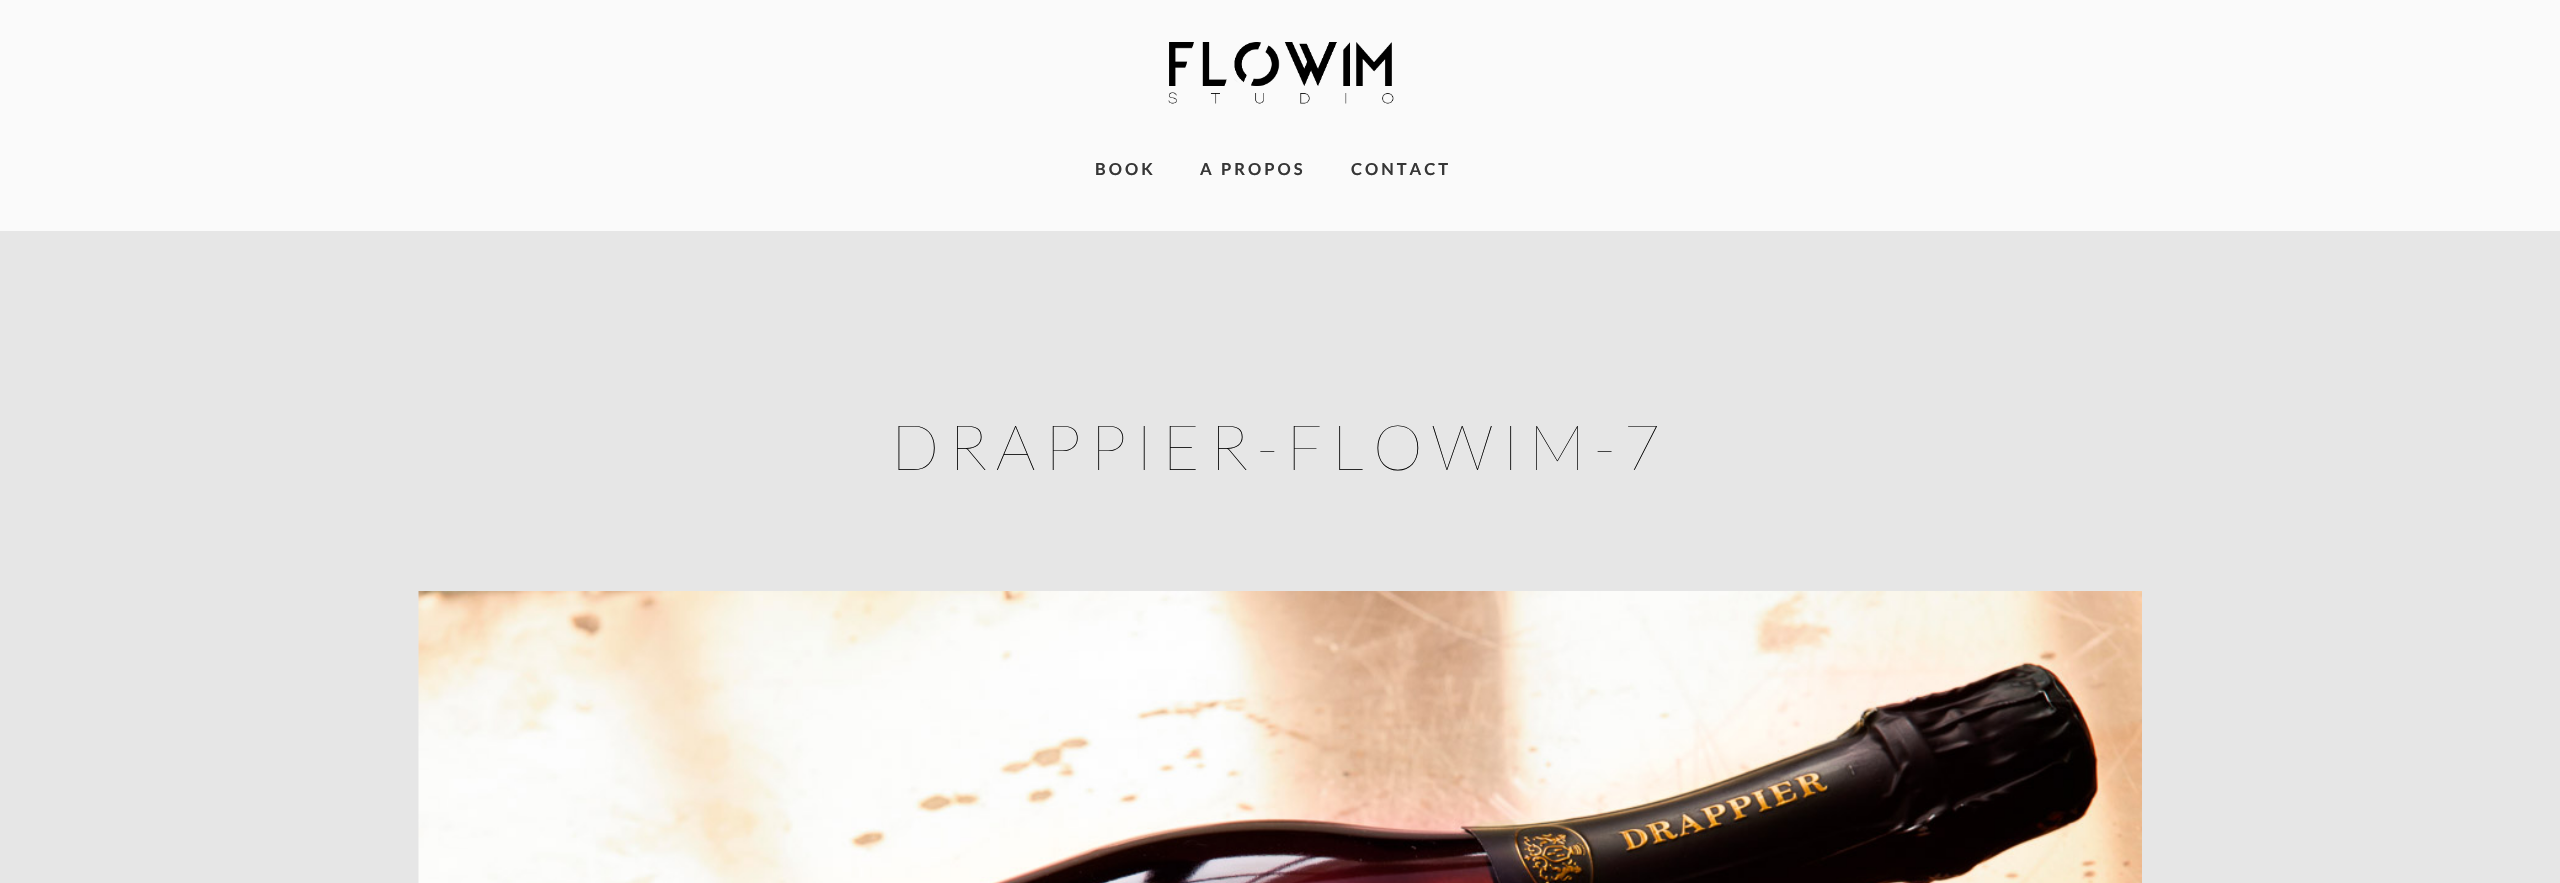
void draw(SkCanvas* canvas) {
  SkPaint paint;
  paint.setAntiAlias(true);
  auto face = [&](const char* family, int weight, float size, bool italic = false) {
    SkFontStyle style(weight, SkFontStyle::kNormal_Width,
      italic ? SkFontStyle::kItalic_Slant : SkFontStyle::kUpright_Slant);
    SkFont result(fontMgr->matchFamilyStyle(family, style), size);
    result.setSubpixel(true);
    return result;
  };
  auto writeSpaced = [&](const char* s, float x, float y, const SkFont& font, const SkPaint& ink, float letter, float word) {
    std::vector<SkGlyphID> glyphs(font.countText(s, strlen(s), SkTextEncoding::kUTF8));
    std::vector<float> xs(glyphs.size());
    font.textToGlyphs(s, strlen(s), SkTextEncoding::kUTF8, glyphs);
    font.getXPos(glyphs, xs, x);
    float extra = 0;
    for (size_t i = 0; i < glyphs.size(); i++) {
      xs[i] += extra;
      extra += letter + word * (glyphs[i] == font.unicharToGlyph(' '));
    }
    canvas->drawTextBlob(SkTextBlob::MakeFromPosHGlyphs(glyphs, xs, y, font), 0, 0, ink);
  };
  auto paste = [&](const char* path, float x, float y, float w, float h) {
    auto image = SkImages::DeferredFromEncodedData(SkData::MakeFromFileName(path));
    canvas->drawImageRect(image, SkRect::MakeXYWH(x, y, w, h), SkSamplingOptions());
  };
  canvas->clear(0xffe6e6e6);
  paint.setColor(0xfffafafa);
  canvas->drawRect(SkRect::MakeXYWH(0, 0, 2560, 231), paint);
  paste("img/1.png", 1168, 42, 226, 62);
  paste("img/2.png", 418, 591, 1724, 292);
  auto f0 = face("Lato", 700, 16.5f);
  paint.setColor(0xff363636);
  {
    const struct { const char* s; float x, y; } items[] = {
      {"BOOK", 1095, 175},
      {"A PROPOS", 1200, 175},
      {"CONTACT", 1351, 175},
    };
    for (auto [s, x, y] : items) {
      writeSpaced(s, x, y, f0, paint, 3, 0);
    }
  }
  auto f1 = face("Lato", 100, 63);
  paint.setColor(0xff000000);
  writeSpaced("DRAPPIER-FLOWIM-7", 891, 470, f1, paint, 9, 0);
}
